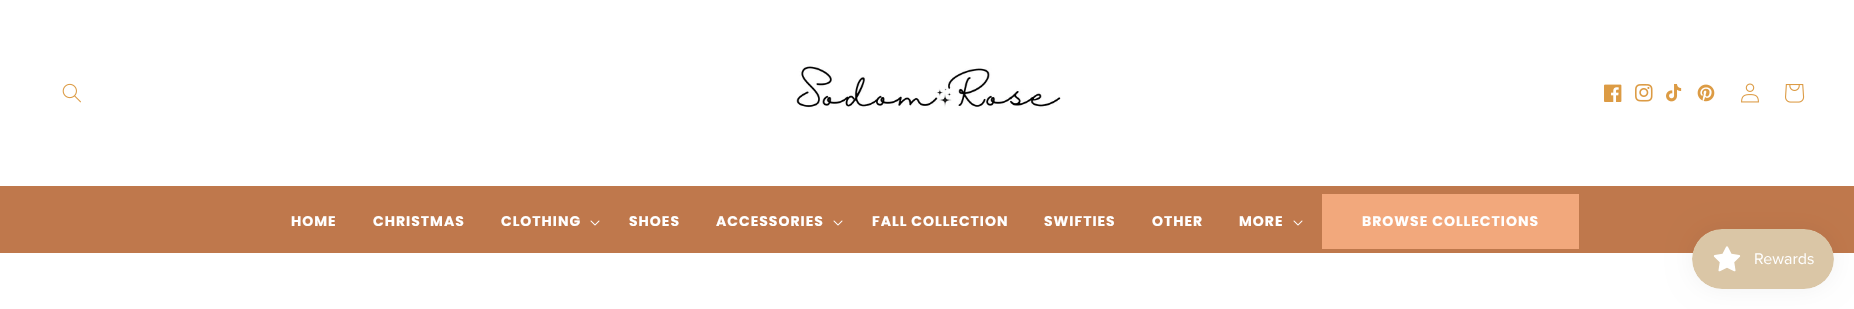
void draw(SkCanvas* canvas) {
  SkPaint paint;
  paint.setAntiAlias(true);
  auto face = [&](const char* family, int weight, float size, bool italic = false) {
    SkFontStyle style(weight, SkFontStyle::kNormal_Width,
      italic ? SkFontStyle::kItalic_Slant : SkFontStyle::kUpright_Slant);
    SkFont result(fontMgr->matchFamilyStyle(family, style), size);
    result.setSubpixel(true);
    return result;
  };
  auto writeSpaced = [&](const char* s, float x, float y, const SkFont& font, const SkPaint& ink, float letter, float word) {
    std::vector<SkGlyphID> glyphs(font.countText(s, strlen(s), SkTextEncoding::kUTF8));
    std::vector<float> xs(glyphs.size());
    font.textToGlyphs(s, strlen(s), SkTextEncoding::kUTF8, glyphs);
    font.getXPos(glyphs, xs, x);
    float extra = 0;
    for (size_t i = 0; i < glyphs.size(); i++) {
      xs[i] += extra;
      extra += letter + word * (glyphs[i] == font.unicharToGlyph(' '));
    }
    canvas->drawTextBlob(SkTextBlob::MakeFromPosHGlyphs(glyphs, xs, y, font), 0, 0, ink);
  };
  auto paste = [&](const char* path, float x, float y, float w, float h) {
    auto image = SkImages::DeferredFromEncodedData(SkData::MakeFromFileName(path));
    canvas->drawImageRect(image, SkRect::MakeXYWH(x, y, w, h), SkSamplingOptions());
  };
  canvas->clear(0xffffffff);
  paste("img/1.png", 62, 83, 19, 20);
  paste("img/2.png", 796, 66, 265, 42);
  paste("img/3.png", 1604, 84, 18, 18);
  paste("img/4.png", 1635, 84, 18, 18);
  paste("img/5.png", 1666, 84, 16, 18);
  paste("img/6.png", 1697, 84, 18, 18);
  paste("img/7.png", 1741, 83, 18, 20);
  paste("img/8.png", 1785, 84, 20, 19);
  paint.setColor(0xffbf784c);
  canvas->drawRect(SkRect::MakeXYWH(0, 186, 1854, 67), paint);
  paste("img/9.png", 590, 220, 10, 6);
  paste("img/9.png", 833, 220, 10, 6);
  paste("img/9.png", 1293, 220, 10, 6);
  paint.setColor(0xfff2a87c);
  canvas->drawRect(SkRect::MakeXYWH(1322, 194, 257, 55), paint);
  paint.setColor(0x0d000000);
  paint.setMaskFilter(SkMaskFilter::MakeBlur(kNormal_SkBlurStyle, 12.5f));
  canvas->drawRoundRect(SkRect::MakeXYWH(1692, 229, 142, 60), 30, 30, paint);
  paint.setMaskFilter(nullptr);
  paste("img/10.png", 1692, 229, 142, 60);
  auto f0 = face("Poppins", 700, 14);
  paint.setColor(0xffffffff);
  {
    const struct { const char* s; float x, y; } items[] = {
      {"HOME", 291, 226},
      {"CHRISTMAS", 373, 226},
      {"CLOTHING", 501, 226},
      {"SHOES", 629, 226},
      {"ACCESSORIES", 716, 226},
      {"FALL COLLECTION", 872, 226},
      {"SWIFTIES", 1044, 226},
      {"OTHER", 1152, 226},
      {"MORE", 1239, 226},
      {"BROWSE COLLECTIONS", 1362, 226},
    };
    for (auto [s, x, y] : items) {
      writeSpaced(s, x, y, f0, paint, 1, 0);
    }
  }
}
